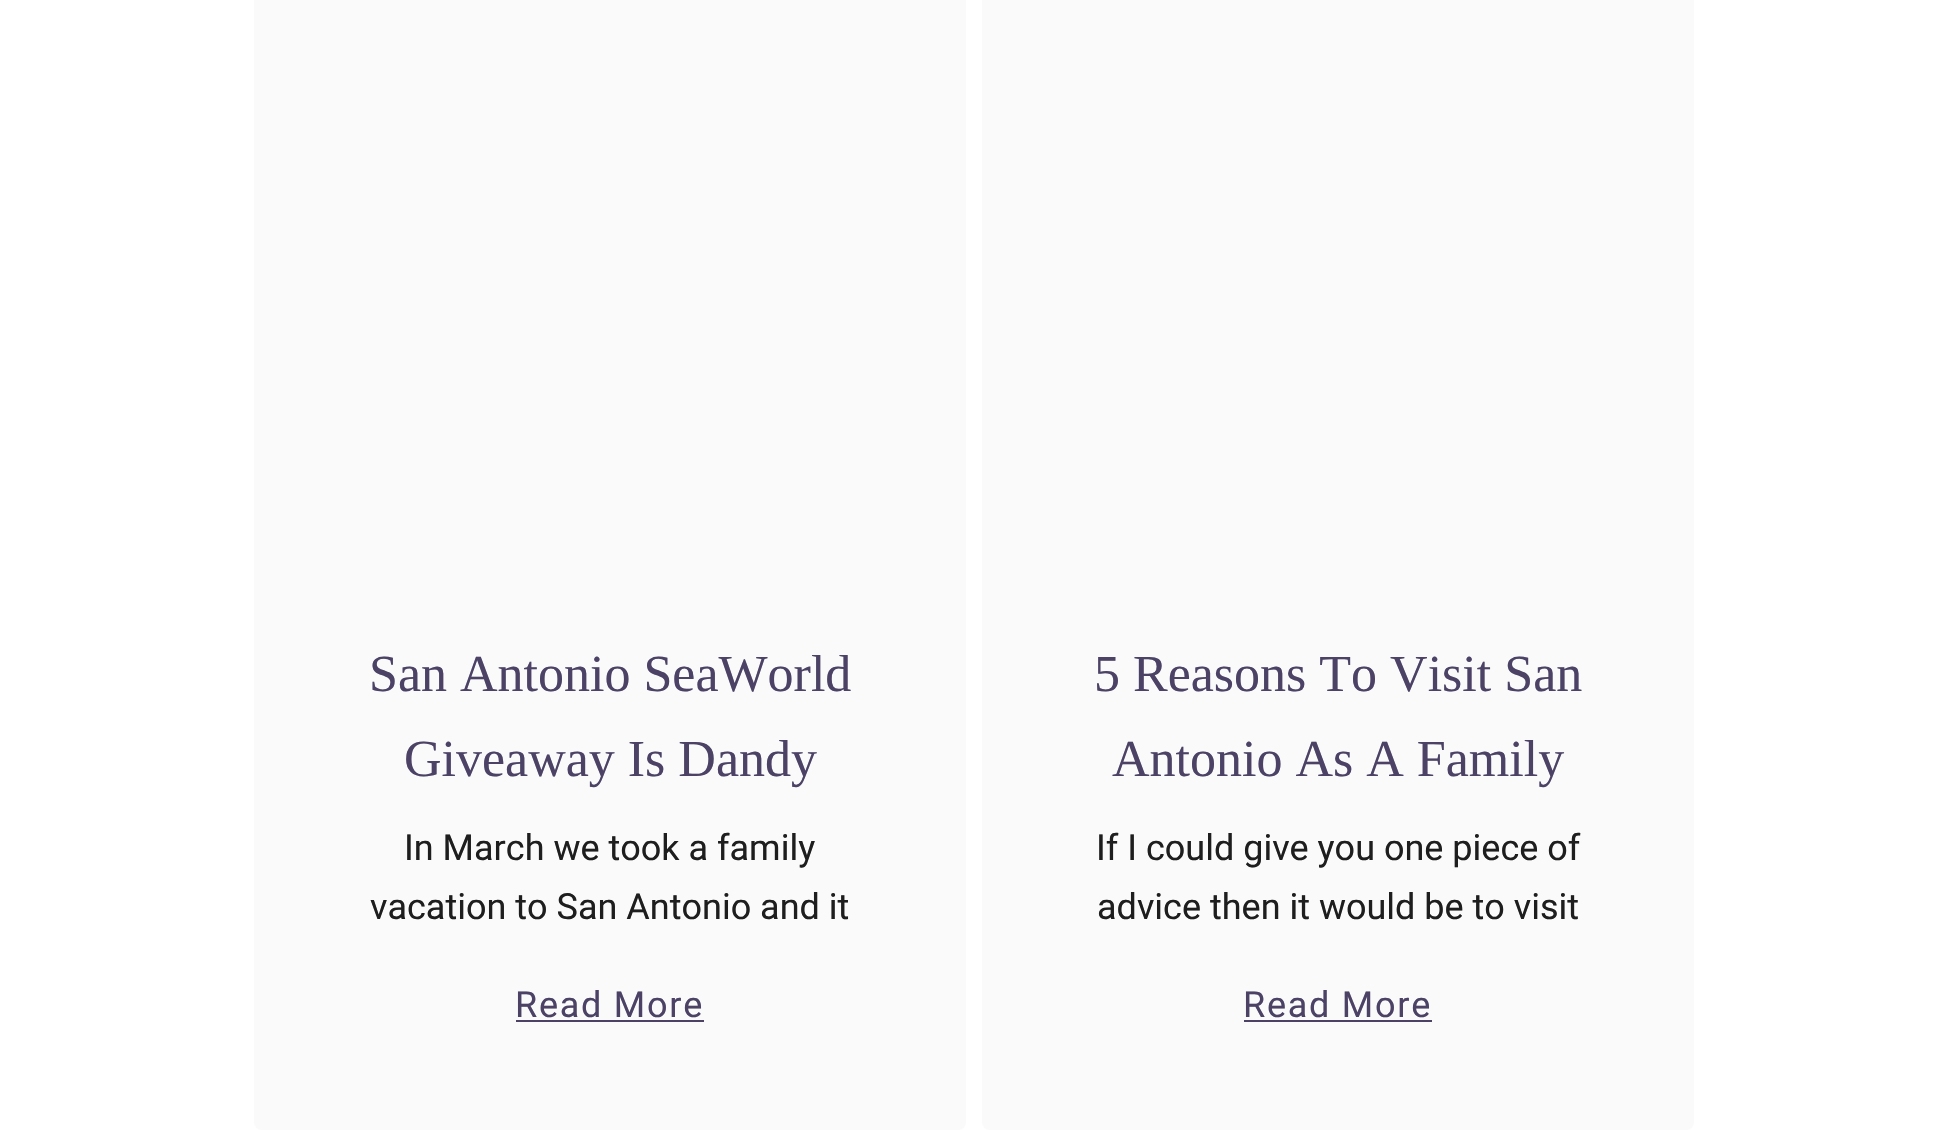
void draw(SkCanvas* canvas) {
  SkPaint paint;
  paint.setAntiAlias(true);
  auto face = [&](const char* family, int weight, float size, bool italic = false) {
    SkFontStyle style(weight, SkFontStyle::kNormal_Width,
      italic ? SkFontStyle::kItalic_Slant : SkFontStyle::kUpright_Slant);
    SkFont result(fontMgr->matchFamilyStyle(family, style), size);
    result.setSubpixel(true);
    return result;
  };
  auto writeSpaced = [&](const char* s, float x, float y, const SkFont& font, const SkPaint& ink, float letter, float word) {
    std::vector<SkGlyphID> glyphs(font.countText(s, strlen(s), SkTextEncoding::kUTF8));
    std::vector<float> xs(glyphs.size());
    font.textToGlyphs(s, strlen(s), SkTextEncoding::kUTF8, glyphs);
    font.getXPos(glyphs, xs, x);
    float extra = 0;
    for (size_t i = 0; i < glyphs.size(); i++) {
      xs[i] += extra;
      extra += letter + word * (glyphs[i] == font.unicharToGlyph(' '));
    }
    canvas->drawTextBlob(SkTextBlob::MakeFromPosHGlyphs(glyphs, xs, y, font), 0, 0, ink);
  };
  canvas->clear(0xffffffff);
  paint.setColor(0xfffafafa);
  canvas->drawRoundRect(SkRect::MakeXYWH(254, -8, 712, 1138), 8, 8, paint);
  paint.setColor(0xff4b4266);
  canvas->drawRect(SkRect::MakeXYWH(516, 1020, 188, 2), paint);
  paint.setColor(0xfffafafa);
  canvas->drawRoundRect(SkRect::MakeXYWH(982, -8, 712, 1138), 8, 8, paint);
  paint.setColor(0xff4b4266);
  canvas->drawRect(SkRect::MakeXYWH(1244, 1020, 188, 2), paint);
  auto f0 = face("Liberation Serif", 400, 52);
  canvas->drawString("San Antonio SeaWorld", 369, 691, f0, paint);
  canvas->drawString("Giveaway Is Dandy", 404, 776, f0, paint);
  auto f1 = face("Roboto", 400, 36);
  paint.setColor(0xff1e1e1e);
  canvas->drawString("In March we took a family", 404, 860, f1, paint);
  canvas->drawString("vacation to San Antonio and it", 370, 919, f1, paint);
  paint.setColor(0xff4b4266);
  writeSpaced("Read More", 515, 1017, f1, paint, 1.75f, 0);
  canvas->drawString("5 Reasons To Visit San", 1094, 691, f0, paint);
  canvas->drawString("Antonio As A Family", 1112, 776, f0, paint);
  paint.setColor(0xff1e1e1e);
  canvas->drawString("If I could give you one piece of", 1096, 860, f1, paint);
  canvas->drawString("advice then it would be to visit", 1097, 919, f1, paint);
  paint.setColor(0xff4b4266);
  writeSpaced("Read More", 1243, 1017, f1, paint, 1.75f, 0);
}
